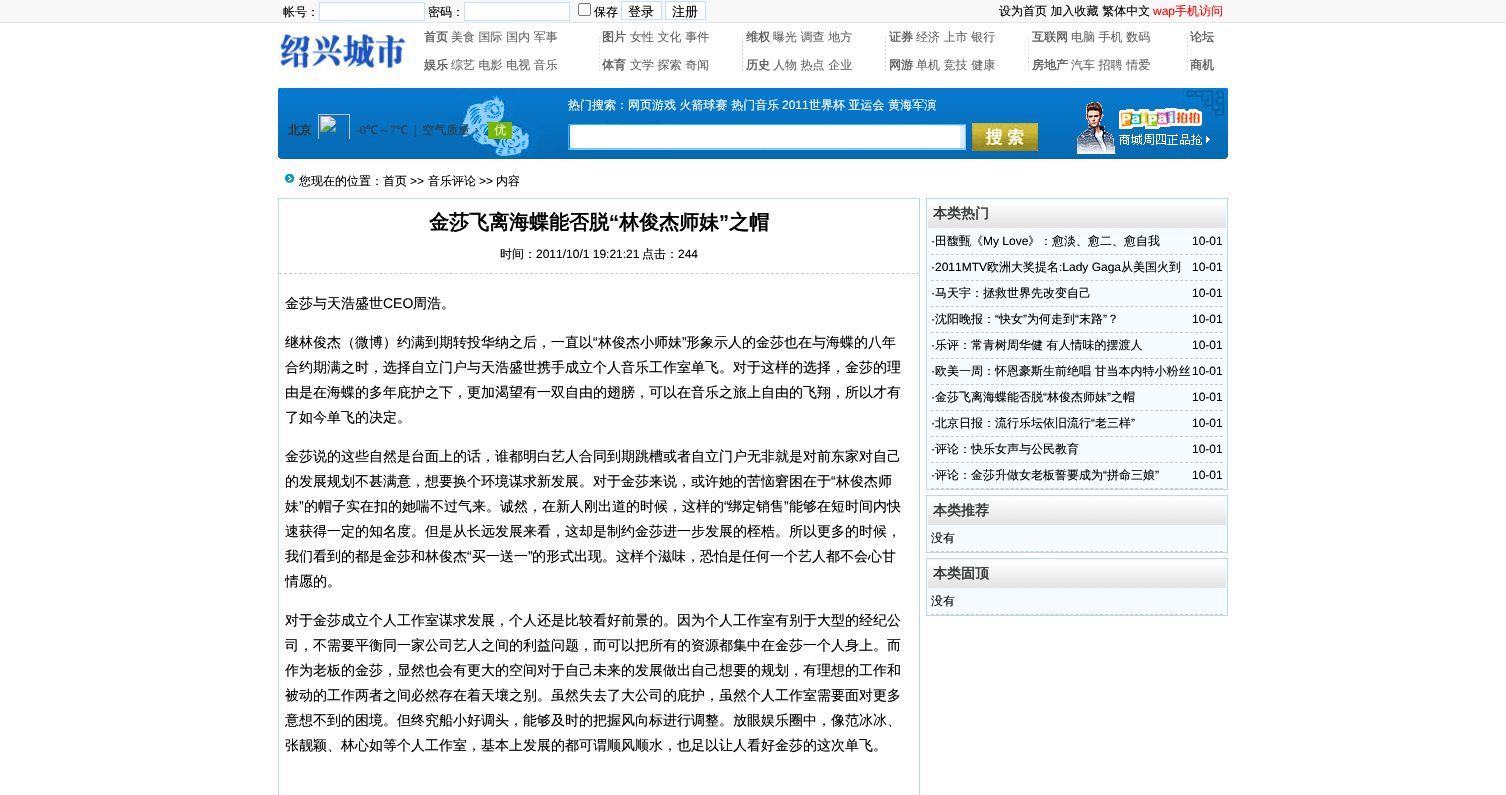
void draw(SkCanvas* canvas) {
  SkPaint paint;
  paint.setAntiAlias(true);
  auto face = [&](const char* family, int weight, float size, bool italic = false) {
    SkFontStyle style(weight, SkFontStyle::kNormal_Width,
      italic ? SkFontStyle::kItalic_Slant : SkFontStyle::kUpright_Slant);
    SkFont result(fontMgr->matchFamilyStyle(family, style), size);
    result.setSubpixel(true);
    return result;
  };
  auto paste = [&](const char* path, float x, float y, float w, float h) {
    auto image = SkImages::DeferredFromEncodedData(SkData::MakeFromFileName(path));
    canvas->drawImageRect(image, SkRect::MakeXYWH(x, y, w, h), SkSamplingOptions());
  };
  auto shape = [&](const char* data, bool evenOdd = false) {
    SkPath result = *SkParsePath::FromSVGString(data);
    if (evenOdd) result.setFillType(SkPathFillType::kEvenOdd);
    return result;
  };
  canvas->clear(0xffffffff);
  paste("img/1.png", 0, 0, 1506, 23);
  paint.setColor(0xffffffff);
  canvas->drawRect(SkRect::MakeXYWH(319.5f, 2.5f, 105, 18), paint);
  paint.setStroke(true);
  paint.setStrokeWidth(1);
  paint.setColor(0xffc6dfff);
  canvas->drawRect(SkRect::MakeXYWH(319.5f, 2.5f, 105, 18), paint);
  paint.setStroke(false);
  paint.setColor(0xffffffff);
  canvas->drawRect(SkRect::MakeXYWH(464.5f, 2.5f, 105, 18), paint);
  paint.setStroke(true);
  paint.setColor(0xffc6dfff);
  canvas->drawRect(SkRect::MakeXYWH(464.5f, 2.5f, 105, 18), paint);
  paint.setStroke(false);
  paint.setColor(0xffffffff);
  canvas->drawRoundRect(SkRect::MakeXYWH(578.5f, 3.5f, 12, 12), 1.5f, 1.5f, paint);
  paint.setStroke(true);
  paint.setColor(0xff767676);
  canvas->drawRoundRect(SkRect::MakeXYWH(578.5f, 3.5f, 12, 12), 1.5f, 1.5f, paint);
  paint.setStroke(false);
  paint.setColor(0xffffffff);
  canvas->drawRect(SkRect::MakeXYWH(621.5f, 1.5f, 40, 18), paint);
  paint.setStroke(true);
  paint.setColor(0xffc6dfff);
  canvas->drawRect(SkRect::MakeXYWH(621.5f, 1.5f, 40, 18), paint);
  paint.setStroke(false);
  paint.setColor(0xffffffff);
  canvas->drawRect(SkRect::MakeXYWH(665.5f, 1.5f, 40, 18), paint);
  paint.setStroke(true);
  paint.setColor(0xffc6dfff);
  canvas->drawRect(SkRect::MakeXYWH(665.5f, 1.5f, 40, 18), paint);
  paste("img/2.png", 278, 31, 130, 41);
  paste("img/3.png", 599, 37, 1, 34);
  paste("img/3.png", 742, 37, 1, 34);
  paste("img/3.png", 885, 37, 1, 34);
  paste("img/3.png", 1028, 37, 1, 34);
  paste("img/3.png", 1187, 37, 1, 34);
  paste("img/4.png", 278, 88, 950, 72);
  paste("img/5.png", 288, 114, 224, 25);
  paste("img/6.png", 1077, 102, 133, 52);
  paint.setStroke(false);
  paint.setColor(0xffffffff);
  canvas->drawRect(SkRect::MakeXYWH(574, 126, 386, 22), paint);
  paste("img/7.png", 972, 123, 66, 28);
  paste("img/8.png", 285, 174, 9, 9);
  paint.setStroke(true);
  paint.setColor(0xffbdd7f2);
  canvas->drawRect(SkRect::MakeXYWH(278.5f, 198.5f, 641, 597), paint);
  paint.setColor(0xffcccccc);
  paint.setPathEffect(SkDashPathEffect::Make({{3, 2.02f}}, 0));
  canvas->drawPath(shape("M279 273.5H919"), paint);
  paint.setPathEffect(nullptr);
  paint.setStroke(false);
  paint.setColor(0xfff5fbff);
  canvas->drawRect(SkRect::MakeXYWH(926.5f, 198.5f, 301, 291), paint);
  paint.setStroke(true);
  paint.setColor(0xffbdd7f2);
  canvas->drawRect(SkRect::MakeXYWH(926.5f, 198.5f, 301, 291), paint);
  paste("img/9.png", 928, 200, 298, 28);
  paint.setColor(0xffcccccc);
  paint.setPathEffect(SkDashPathEffect::Make({{3, 1.98f}}, 0));
  canvas->drawPath(shape("M931 254.5H1223"), paint);
  paint.setPathEffect(nullptr);
  paint.setPathEffect(SkDashPathEffect::Make({{3, 1.98f}}, 0));
  canvas->drawPath(shape("M931 280.5H1223"), paint);
  paint.setPathEffect(nullptr);
  paint.setPathEffect(SkDashPathEffect::Make({{3, 1.98f}}, 0));
  canvas->drawPath(shape("M931 306.5H1223"), paint);
  paint.setPathEffect(nullptr);
  paint.setPathEffect(SkDashPathEffect::Make({{3, 1.98f}}, 0));
  canvas->drawPath(shape("M931 332.5H1223"), paint);
  paint.setPathEffect(nullptr);
  paint.setPathEffect(SkDashPathEffect::Make({{3, 1.98f}}, 0));
  canvas->drawPath(shape("M931 358.5H1223"), paint);
  paint.setPathEffect(nullptr);
  paint.setPathEffect(SkDashPathEffect::Make({{3, 1.98f}}, 0));
  canvas->drawPath(shape("M931 384.5H1223"), paint);
  paint.setPathEffect(nullptr);
  paint.setPathEffect(SkDashPathEffect::Make({{3, 1.98f}}, 0));
  canvas->drawPath(shape("M931 410.5H1223"), paint);
  paint.setPathEffect(nullptr);
  paint.setPathEffect(SkDashPathEffect::Make({{3, 1.98f}}, 0));
  canvas->drawPath(shape("M931 436.5H1223"), paint);
  paint.setPathEffect(nullptr);
  paint.setPathEffect(SkDashPathEffect::Make({{3, 1.98f}}, 0));
  canvas->drawPath(shape("M931 462.5H1223"), paint);
  paint.setPathEffect(nullptr);
  paint.setPathEffect(SkDashPathEffect::Make({{3, 1.98f}}, 0));
  canvas->drawPath(shape("M931 488.5H1223"), paint);
  paint.setPathEffect(nullptr);
  paint.setStroke(false);
  paint.setColor(0xfff5fbff);
  canvas->drawRect(SkRect::MakeXYWH(926.5f, 495.5f, 301, 57), paint);
  paint.setStroke(true);
  paint.setColor(0xffbdd7f2);
  canvas->drawRect(SkRect::MakeXYWH(926.5f, 495.5f, 301, 57), paint);
  paste("img/9.png", 928, 497, 298, 28);
  paint.setColor(0xffcccccc);
  paint.setPathEffect(SkDashPathEffect::Make({{3, 1.98f}}, 0));
  canvas->drawPath(shape("M931 551.5H1223"), paint);
  paint.setPathEffect(nullptr);
  paint.setStroke(false);
  paint.setColor(0xfff5fbff);
  canvas->drawRect(SkRect::MakeXYWH(926.5f, 558.5f, 301, 57), paint);
  paint.setStroke(true);
  paint.setColor(0xffbdd7f2);
  canvas->drawRect(SkRect::MakeXYWH(926.5f, 558.5f, 301, 57), paint);
  paste("img/9.png", 928, 560, 298, 28);
  paint.setColor(0xffcccccc);
  paint.setPathEffect(SkDashPathEffect::Make({{3, 1.98f}}, 0));
  canvas->drawPath(shape("M931 614.5H1223"), paint);
  paint.setPathEffect(nullptr);
  auto f0 = face("WenQuanYi Zen Hei", 500, 12);
  paint.setStroke(false);
  paint.setColor(0xff000000);
  {
    const struct { const char* s; float x, y; } items[] = {
      {"帐号：", 283, 16},
      {"密码：", 428, 16},
      {"保存", 594, 16},
    };
    for (auto [s, x, y] : items) {
      canvas->drawString(s, x, y, f0, paint);
    }
  }
  auto f1 = face("WenQuanYi Zen Hei", 500, 13);
  canvas->drawString("登录", 628, 16, f1, paint);
  canvas->drawString("注册", 672, 16, f1, paint);
  canvas->drawString("设为首页 加入收藏 繁体中文", 999, 15, f0, paint);
  auto f2 = face("Liberation Sans", 400, 12);
  paint.setColor(0xffff0000);
  canvas->drawString("wap", 1153, 15, f2, paint);
  canvas->drawString("手机访问", 1175, 15, f0, paint);
  auto f3 = face("WenQuanYi Zen Hei", 700, 12);
  paint.setColor(0xff666565);
  canvas->drawString("首页", 424, 41, f3, paint);
  canvas->drawString("美食 国际 国内 军事", 451, 41, f0, paint);
  canvas->drawString("图片", 602, 41, f3, paint);
  canvas->drawString("女性 文化 事件", 630, 41, f0, paint);
  canvas->drawString("维权", 746, 41, f3, paint);
  canvas->drawString("曝光 调查 地方", 773, 41, f0, paint);
  canvas->drawString("证券", 889, 41, f3, paint);
  canvas->drawString("经济 上市 银行", 916, 41, f0, paint);
  canvas->drawString("互联网", 1032, 41, f3, paint);
  canvas->drawString("电脑 手机 数码", 1071, 41, f0, paint);
  canvas->drawString("论坛", 1190, 41, f3, paint);
  canvas->drawString("娱乐", 424, 69, f3, paint);
  canvas->drawString("综艺 电影 电视 音乐", 451, 69, f0, paint);
  canvas->drawString("体育", 602, 69, f3, paint);
  canvas->drawString("文学 探索 奇闻", 630, 69, f0, paint);
  canvas->drawString("历史", 746, 69, f3, paint);
  canvas->drawString("人物 热点 企业", 773, 69, f0, paint);
  canvas->drawString("网游", 889, 69, f3, paint);
  canvas->drawString("单机 竞技 健康", 916, 69, f0, paint);
  canvas->drawString("房地产", 1032, 69, f3, paint);
  canvas->drawString("汽车 招聘 情爱", 1071, 69, f0, paint);
  canvas->drawString("商机", 1190, 69, f3, paint);
  paint.setColor(0xffffffff);
  canvas->drawString("热门搜索：网页游戏 火箭球赛 热门音乐", 568, 109, f0, paint);
  canvas->drawString("2011", 782, 109, f2, paint);
  canvas->drawString("世界杯 亚运会 黄海军演", 809, 109, f0, paint);
  paint.setColor(0xff000000);
  canvas->drawString("您现在的位置：首页", 299, 185, f0, paint);
  canvas->drawString(">>", 410, 185, f2, paint);
  canvas->drawString("音乐评论", 428, 185, f0, paint);
  canvas->drawString(">>", 479, 185, f2, paint);
  canvas->drawString("内容", 496, 185, f0, paint);
  auto f4 = face("WenQuanYi Zen Hei", 700, 20);
  canvas->drawString("金莎飞离海蝶能否脱", 429, 229, f4, paint);
  auto f5 = face("Liberation Sans", 700, 20);
  canvas->drawString("“", 609, 229, f5, paint);
  canvas->drawString("林俊杰师妹", 619, 229, f4, paint);
  canvas->drawString("”", 719, 229, f5, paint);
  canvas->drawString("之帽", 729, 229, f4, paint);
  canvas->drawString("时间：", 500, 258, f0, paint);
  canvas->drawString("2011/10/1 19:21:21", 536, 258, f2, paint);
  canvas->drawString("点击：", 642, 258, f0, paint);
  canvas->drawString("244", 678, 258, f2, paint);
  auto f6 = face("WenQuanYi Zen Hei", 500, 14);
  canvas->drawString("金莎与天浩盛世", 285, 308, f6, paint);
  auto f7 = face("Liberation Sans", 400, 14);
  canvas->drawString("CEO", 383, 308, f7, paint);
  canvas->drawString("周浩。", 413, 308, f6, paint);
  canvas->drawString("继林俊杰（微博）约满到期转投华纳之后，一直以", 285, 347, f6, paint);
  canvas->drawString("“", 593, 347, f7, paint);
  canvas->drawString("林俊杰小师妹", 598, 347, f6, paint);
  canvas->drawString("”", 682, 347, f7, paint);
  {
    const struct { const char* s; float x, y; } items[] = {
      {"形象示人的金莎也在与海蝶的八年", 686, 347},
      {"合约期满之时，选择自立门户与天浩盛世携手成立个人音乐工作室单飞。对于这样的选择，金莎的理", 285, 372},
      {"由是在海蝶的多年庇护之下，更加渴望有一双自由的翅膀，可以在音乐之旅上自由的飞翔，所以才有", 285, 397},
      {"了如今单飞的决定。", 285, 422},
      {"金莎说的这些自然是台面上的话，谁都明白艺人合同到期跳槽或者自立门户无非就是对前东家对自己", 285, 461},
      {"的发展规划不甚满意，想要换个环境谋求新发展。对于金莎来说，或许她的苦恼窘困在于", 285, 486},
    };
    for (auto [s, x, y] : items) {
      canvas->drawString(s, x, y, f6, paint);
    }
  }
  canvas->drawString("“", 831, 486, f7, paint);
  canvas->drawString("林俊杰师", 836, 486, f6, paint);
  canvas->drawString("妹", 285, 511, f6, paint);
  canvas->drawString("”", 299, 511, f7, paint);
  canvas->drawString("的帽子实在扣的她喘不过气来。诚然，在新人刚出道的时候，这样的", 304, 511, f6, paint);
  canvas->drawString("“", 724, 511, f7, paint);
  canvas->drawString("绑定销售", 728, 511, f6, paint);
  canvas->drawString("”", 784, 511, f7, paint);
  {
    const struct { const char* s; float x, y; } items[] = {
      {"能够在短时间内快", 789, 511},
      {"速获得一定的知名度。但是从长远发展来看，这却是制约金莎进一步发展的桎梏。所以更多的时候，", 285, 536},
      {"我们看到的都是金莎和林俊杰", 285, 561},
    };
    for (auto [s, x, y] : items) {
      canvas->drawString(s, x, y, f6, paint);
    }
  }
  canvas->drawString("“", 467, 561, f7, paint);
  canvas->drawString("买一送一", 472, 561, f6, paint);
  canvas->drawString("”", 528, 561, f7, paint);
  {
    const struct { const char* s; float x, y; } items[] = {
      {"的形式出现。这样个滋味，恐怕是任何一个艺人都不会心甘", 532, 561},
      {"情愿的。", 285, 586},
      {"对于金莎成立个人工作室谋求发展，个人还是比较看好前景的。因为个人工作室有别于大型的经纪公", 285, 625},
      {"司，不需要平衡同一家公司艺人之间的利益问题，而可以把所有的资源都集中在金莎一个人身上。而", 285, 650},
      {"作为老板的金莎，显然也会有更大的空间对于自己未来的发展做出自己想要的规划，有理想的工作和", 285, 675},
      {"被动的工作两者之间必然存在着天壤之别。虽然失去了大公司的庇护，虽然个人工作室需要面对更多", 285, 700},
      {"意想不到的困境。但终究船小好调头，能够及时的把握风向标进行调整。放眼娱乐圈中，像范冰冰、", 285, 725},
      {"张靓颖、林心如等个人工作室，基本上发展的都可谓顺风顺水，也足以让人看好金莎的这次单飞。", 285, 750},
    };
    for (auto [s, x, y] : items) {
      canvas->drawString(s, x, y, f6, paint);
    }
  }
  auto f8 = face("WenQuanYi Zen Hei", 700, 14);
  paint.setColor(0xff3a3c3d);
  canvas->drawString("本类热门", 933, 218, f8, paint);
  paint.setColor(0xff000000);
  canvas->drawString("·", 931, 245, f2, paint);
  canvas->drawString("田馥甄《", 935, 245, f0, paint);
  canvas->drawString("My Love", 983, 245, f2, paint);
  canvas->drawString("》：愈淡、愈二、愈自我", 1028, 245, f0, paint);
  canvas->drawString("10-01", 1192, 245, f2, paint);
  canvas->drawString("·2011MTV", 931, 271, f2, paint);
  canvas->drawString("欧洲大奖提名", 987, 271, f0, paint);
  canvas->drawString(":Lady Gaga", 1059, 271, f2, paint);
  canvas->drawString("从美国火到", 1121, 271, f0, paint);
  canvas->drawString("10-01", 1192, 271, f2, paint);
  canvas->drawString("·", 931, 297, f2, paint);
  canvas->drawString("马天宇：拯救世界先改变自己", 935, 297, f0, paint);
  canvas->drawString("10-01", 1192, 297, f2, paint);
  canvas->drawString("·", 931, 323, f2, paint);
  canvas->drawString("沈阳晚报：", 935, 323, f0, paint);
  canvas->drawString("“", 995, 323, f2, paint);
  canvas->drawString("快女", 999, 323, f0, paint);
  canvas->drawString("”", 1023, 323, f2, paint);
  canvas->drawString("为何走到", 1027, 323, f0, paint);
  canvas->drawString("“", 1075, 323, f2, paint);
  canvas->drawString("末路", 1079, 323, f0, paint);
  canvas->drawString("”", 1103, 323, f2, paint);
  canvas->drawString("？", 1107, 323, f0, paint);
  canvas->drawString("10-01", 1192, 323, f2, paint);
  canvas->drawString("·", 931, 349, f2, paint);
  canvas->drawString("乐评：常青树周华健 有人情味的摆渡人", 935, 349, f0, paint);
  canvas->drawString("10-01", 1192, 349, f2, paint);
  canvas->drawString("·", 931, 375, f2, paint);
  canvas->drawString("欧美一周：怀恩豪斯生前绝唱 甘当本内特小粉丝", 935, 375, f0, paint);
  canvas->drawString("10-01", 1192, 375, f2, paint);
  canvas->drawString("·", 931, 401, f2, paint);
  canvas->drawString("金莎飞离海蝶能否脱", 935, 401, f0, paint);
  canvas->drawString("“", 1043, 401, f2, paint);
  canvas->drawString("林俊杰师妹", 1047, 401, f0, paint);
  canvas->drawString("”", 1107, 401, f2, paint);
  canvas->drawString("之帽", 1111, 401, f0, paint);
  canvas->drawString("10-01", 1192, 401, f2, paint);
  canvas->drawString("·", 931, 427, f2, paint);
  canvas->drawString("北京日报：流行乐坛依旧流行", 935, 427, f0, paint);
  canvas->drawString("“", 1091, 427, f2, paint);
  canvas->drawString("老三样", 1095, 427, f0, paint);
  {
    const struct { const char* s; float x, y; } items[] = {
      {"”", 1131, 427},
      {"10-01", 1192, 427},
      {"·", 931, 453},
    };
    for (auto [s, x, y] : items) {
      canvas->drawString(s, x, y, f2, paint);
    }
  }
  canvas->drawString("评论：快乐女声与公民教育", 935, 453, f0, paint);
  canvas->drawString("10-01", 1192, 453, f2, paint);
  canvas->drawString("·", 931, 479, f2, paint);
  canvas->drawString("评论：金莎升做女老板誓要成为", 935, 479, f0, paint);
  canvas->drawString("“", 1103, 479, f2, paint);
  canvas->drawString("拼命三娘", 1107, 479, f0, paint);
  canvas->drawString("”", 1155, 479, f2, paint);
  canvas->drawString("10-01", 1192, 479, f2, paint);
  paint.setColor(0xff3a3c3d);
  canvas->drawString("本类推荐", 933, 515, f8, paint);
  paint.setColor(0xff000000);
  canvas->drawString("没有", 931, 542, f0, paint);
  paint.setColor(0xff3a3c3d);
  canvas->drawString("本类固顶", 933, 578, f8, paint);
  paint.setColor(0xff000000);
  canvas->drawString("没有", 931, 605, f0, paint);
}
